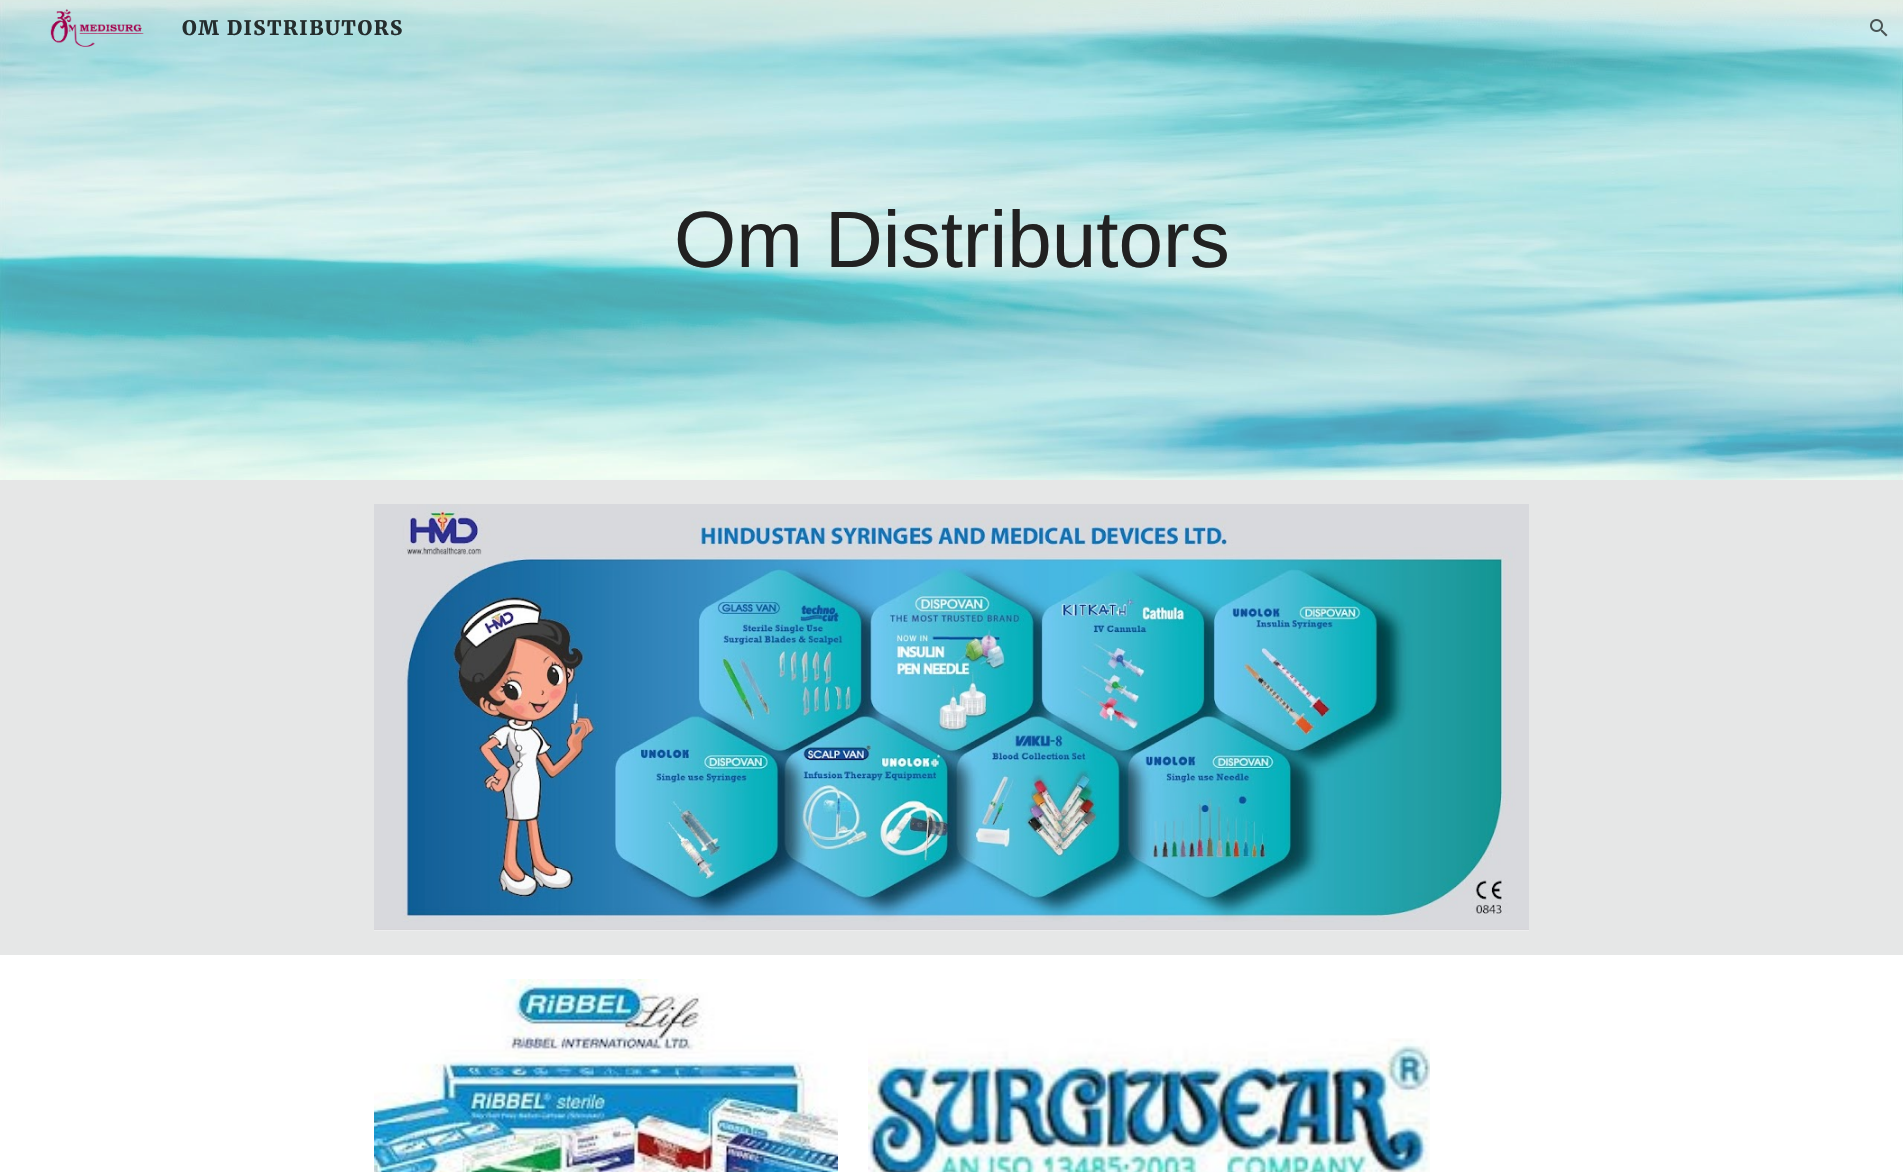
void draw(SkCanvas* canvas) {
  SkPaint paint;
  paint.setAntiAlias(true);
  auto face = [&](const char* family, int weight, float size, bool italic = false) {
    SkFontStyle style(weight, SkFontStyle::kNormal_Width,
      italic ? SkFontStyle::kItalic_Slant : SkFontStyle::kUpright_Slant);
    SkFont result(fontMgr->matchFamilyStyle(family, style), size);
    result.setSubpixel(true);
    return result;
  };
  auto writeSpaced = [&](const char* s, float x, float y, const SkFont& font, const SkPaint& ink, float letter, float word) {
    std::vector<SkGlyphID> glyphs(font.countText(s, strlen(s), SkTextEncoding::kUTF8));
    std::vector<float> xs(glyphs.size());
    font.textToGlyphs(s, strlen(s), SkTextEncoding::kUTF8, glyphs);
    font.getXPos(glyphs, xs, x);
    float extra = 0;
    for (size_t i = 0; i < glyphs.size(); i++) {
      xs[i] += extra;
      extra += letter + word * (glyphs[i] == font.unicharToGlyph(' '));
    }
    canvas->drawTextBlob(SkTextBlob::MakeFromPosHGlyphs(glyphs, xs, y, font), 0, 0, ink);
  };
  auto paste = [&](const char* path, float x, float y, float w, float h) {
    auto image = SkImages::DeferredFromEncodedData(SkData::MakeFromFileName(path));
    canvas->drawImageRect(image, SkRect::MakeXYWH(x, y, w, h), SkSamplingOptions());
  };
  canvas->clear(0xffffffff);
  paste("img/3.png", 0, 0, 1903, 480);
  paste("img/1.png", 50, 9, 94, 38);
  paste("img/2.png", 1870, 19, 18, 18);
  paint.setColor(0xffe6e7e7);
  canvas->drawRect(SkRect::MakeXYWH(0, 480, 1903, 475), paint);
  paste("img/4.png", 374, 504, 1155, 427);
  paste("img/5.png", 374, 979, 464, 193);
  paste("img/6.png", 868, 1038, 562, 134);
  auto f0 = face("Merriweather", 900, 20);
  paint.setColor(0xff242d2d);
  writeSpaced("OM DISTRIBUTORS", 182, 35, f0, paint, 1.5f, 0);
  auto f1 = face("Liberation Sans", 400, 80);
  paint.setColor(0xff212121);
  canvas->drawString("Om Distributors", 674, 267, f1, paint);
}
